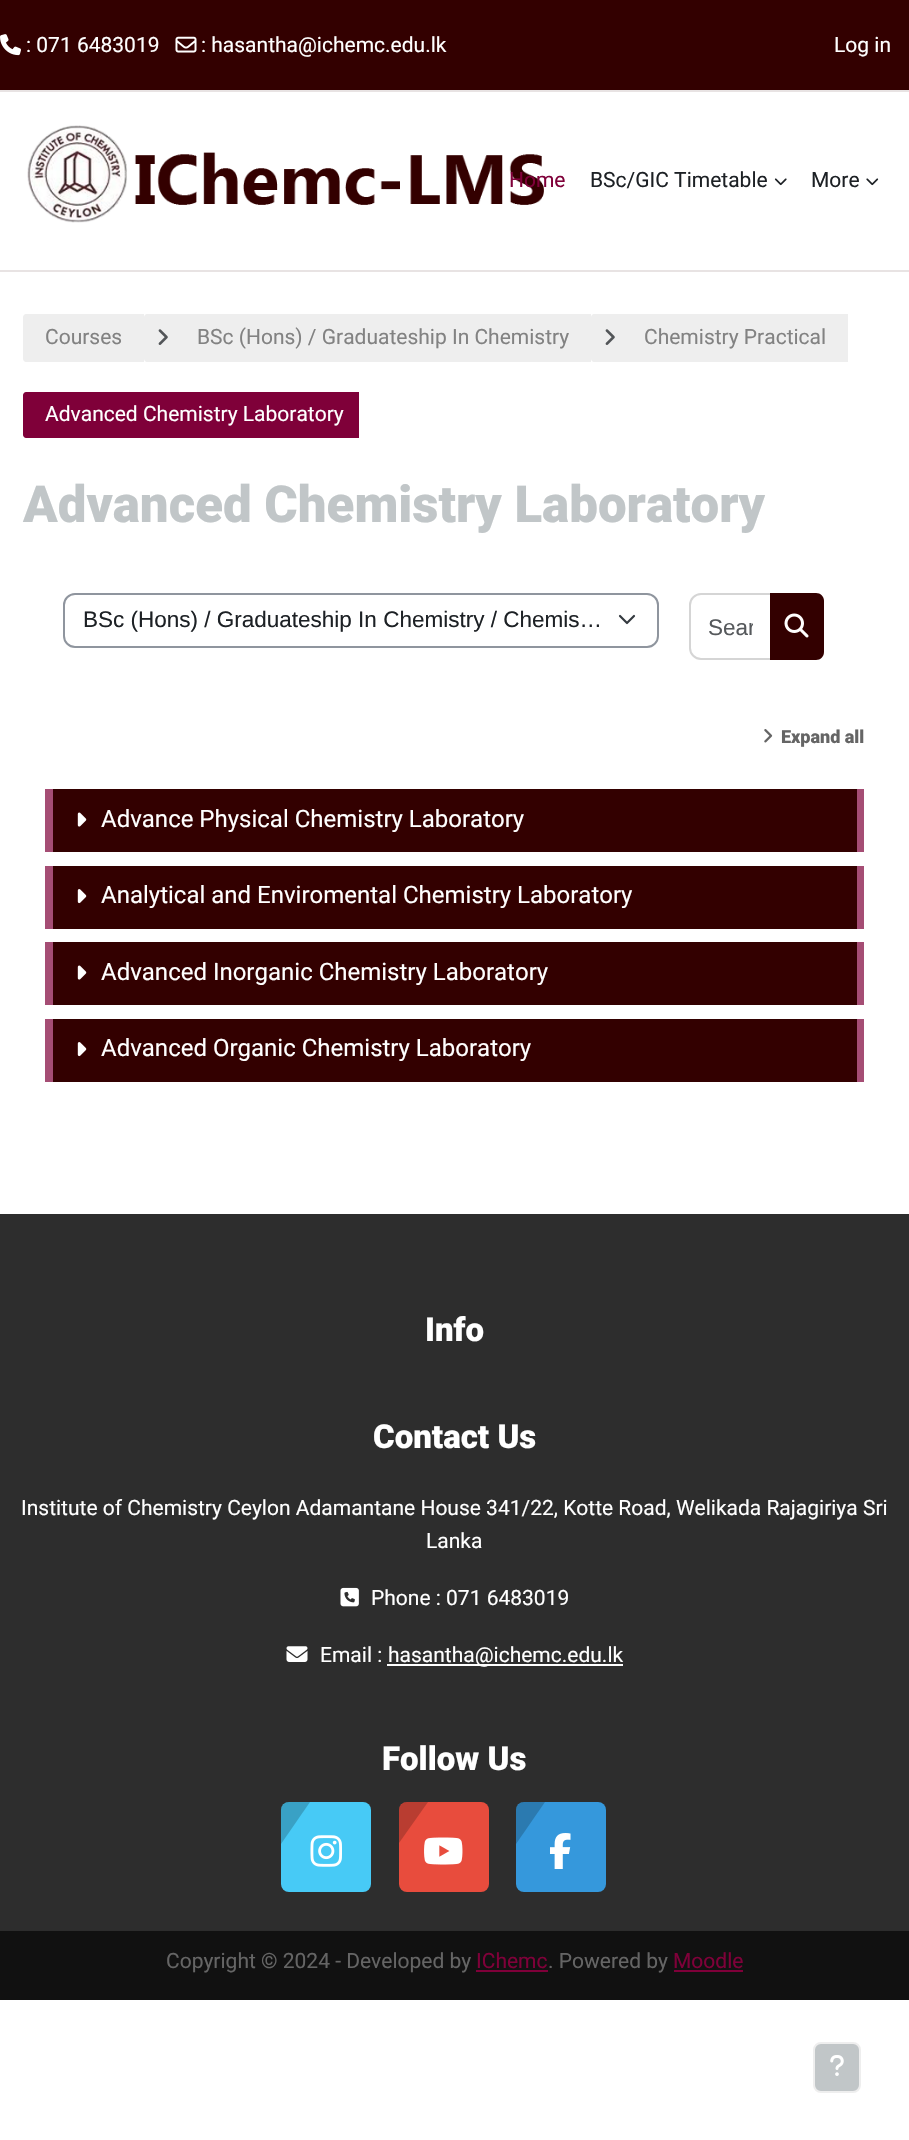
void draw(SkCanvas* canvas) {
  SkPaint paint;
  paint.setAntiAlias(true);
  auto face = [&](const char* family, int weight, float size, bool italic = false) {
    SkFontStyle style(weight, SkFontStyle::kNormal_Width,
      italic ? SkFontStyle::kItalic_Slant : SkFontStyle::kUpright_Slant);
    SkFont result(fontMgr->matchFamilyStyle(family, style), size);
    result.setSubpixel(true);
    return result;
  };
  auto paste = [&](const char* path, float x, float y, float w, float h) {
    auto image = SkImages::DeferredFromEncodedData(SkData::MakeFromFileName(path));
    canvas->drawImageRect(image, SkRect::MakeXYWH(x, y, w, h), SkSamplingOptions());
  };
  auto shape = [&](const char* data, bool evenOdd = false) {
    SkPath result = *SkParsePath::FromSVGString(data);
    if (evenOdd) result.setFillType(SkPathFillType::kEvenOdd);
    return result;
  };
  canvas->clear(0xffffffff);
  paint.setColor(0xff330000);
  canvas->drawRect(SkRect::MakeXYWH(0, 0, 909, 90), paint);
  paint.setColor(0xffe8e3e3);
  canvas->drawRect(SkRect::MakeXYWH(0, 90, 909, 2), paint);
  paste("img/1.png", 0, 34, 21, 22);
  paste("img/2.png", 175, 36, 22, 17);
  canvas->drawRect(SkRect::MakeXYWH(0, 270, 909, 2), paint);
  paste("img/3.png", 27, 125, 517, 98);
  paste("img/4.png", 774, 178, 13, 8);
  paste("img/5.png", 866, 178, 13, 8);
  paint.setColor(0xffeeeeee);
  canvas->drawPath(shape("M26 314H144V362H26C24.5 362 23 360.5 23 359V317C23 315.5 24.5 314 26 314Z"), paint);
  canvas->drawPath(shape("M147 314H591V362H147C145.5 362 144 360.5 144 359V317C144 315.5 145.5 314 147 314Z"), paint);
  paste("img/6.png", 158, 329, 10, 16);
  canvas->drawPath(shape("M594 314H848V362H594C592.5 362 591 360.5 591 359V317C591 315.5 592.5 314 594 314Z"), paint);
  paste("img/6.png", 605, 329, 10, 16);
  paint.setColor(0xff7f0039);
  canvas->drawPath(shape("M26 392H359V438H26C24.5 438 23 436.5 23 435V395C23 393.5 24.5 392 26 392Z"), paint);
  paint.setStroke(true);
  paint.setStrokeWidth(2.2f);
  paint.setStrokeCap(SkPaint::kRound_Cap);
  paint.setStrokeJoin(SkPaint::kRound_Join);
  paint.setColor(0xff343a40);
  canvas->drawPath(shape("M620 616L627 623L634 616"), paint);
  paint.setStrokeWidth(2);
  paint.setStrokeCap(SkPaint::kButt_Cap);
  paint.setStrokeJoin(SkPaint::kMiter_Join);
  paint.setColor(0xff8f959e);
  canvas->drawRoundRect(SkRect::MakeXYWH(64, 594, 594, 53), 11, 11, paint);
  paint.setColor(0xffd5d5d5);
  canvas->drawPath(shape("M701 594H772V659H701C695 659 690 654 690 648V605C690 599 695 594 701 594Z"), paint);
  paint.setStroke(false);
  paint.setColor(0xff330000);
  canvas->drawPath(shape("M770 593H816C820.5 593 824 596.5 824 601V652C824 656.5 820.5 660 816 660H770Z"), paint);
  paste("img/7.png", 784, 613, 25, 25);
  paste("img/8.png", 764, 729, 9, 14);
  paint.setColor(0xffa54d74);
  canvas->drawRect(SkRect::MakeXYWH(45, 789, 819, 63), paint);
  paint.setColor(0xff330000);
  canvas->drawRect(SkRect::MakeXYWH(53, 789, 804, 63), paint);
  paste("img/9.png", 77, 812, 10, 15);
  paint.setColor(0xffa54d74);
  canvas->drawRect(SkRect::MakeXYWH(45, 866, 819, 63), paint);
  paint.setColor(0xff330000);
  canvas->drawRect(SkRect::MakeXYWH(53, 866, 804, 63), paint);
  paste("img/10.png", 77, 889, 10, 15);
  paint.setColor(0xffa54d74);
  canvas->drawRect(SkRect::MakeXYWH(45, 942, 819, 63), paint);
  paint.setColor(0xff330000);
  canvas->drawRect(SkRect::MakeXYWH(53, 942, 804, 63), paint);
  paste("img/9.png", 77, 965, 10, 15);
  paint.setColor(0xffa54d74);
  canvas->drawRect(SkRect::MakeXYWH(45, 1019, 819, 63), paint);
  paint.setColor(0xff330000);
  canvas->drawRect(SkRect::MakeXYWH(53, 1019, 804, 63), paint);
  paste("img/10.png", 77, 1042, 10, 15);
  paint.setColor(0xff2d2d2d);
  canvas->drawRect(SkRect::MakeXYWH(0, 1214, 909, 717), paint);
  paste("img/11.png", 340, 1587, 19, 20);
  paste("img/12.png", 286, 1646, 22, 16);
  paint.setColor(0xffffffff);
  canvas->drawRect(SkRect::MakeXYWH(387, 1664, 236, 2), paint);
  paint.setColor(0xff47caf6);
  canvas->drawRoundRect(SkRect::MakeXYWH(281, 1802, 90, 90), 8, 8, paint);
  paste("img/13.png", 310, 1835, 32, 32);
  paint.setColor(0x33000000);
  canvas->drawPath(shape("M289 1802H310L281 1844V1810C281 1806 285 1802 289 1802Z"), paint);
  paint.setColor(0xffe84c3d);
  canvas->drawRoundRect(SkRect::MakeXYWH(399, 1802, 90, 90), 8, 8, paint);
  paste("img/14.png", 424, 1837, 39, 28);
  paint.setColor(0x33000000);
  canvas->drawPath(shape("M407 1802H428L399 1843V1810C399 1806 403 1802 407 1802Z"), paint);
  paint.setColor(0xff3598dc);
  canvas->drawRoundRect(SkRect::MakeXYWH(516, 1802, 90, 90), 8, 8, paint);
  paste("img/15.png", 550, 1833, 21, 36);
  paint.setColor(0x33000000);
  canvas->drawPath(shape("M524 1802H545L516 1844V1810C516 1806 520 1802 524 1802Z"), paint);
  {
    const struct { float x, y, w, h; SkColor color; } items[] = {
      {0, 1931, 909, 69, 0xff111111},
      {476, 1970, 72, 2, 0xff7f0039},
      {674, 1970, 69, 2, 0xff7f0039},
    };
    for (auto [x, y, w, h, color] : items) {
      paint.setColor(color);
      canvas->drawRect(SkRect::MakeXYWH(x, y, w, h), paint);
    }
  }
  paint.setColor(0xffc1c6c8);
  canvas->drawRoundRect(SkRect::MakeXYWH(814, 2043, 46, 49), 7, 7, paint);
  paint.setStroke(true);
  paint.setColor(0xffeeeeee);
  canvas->drawRoundRect(SkRect::MakeXYWH(814, 2043, 46, 49), 7, 7, paint);
  paste("img/16.png", 830, 2055, 14, 21);
  auto f0 = face("Roboto", 400, 21);
  paint.setStroke(false);
  paint.setColor(0xffffffff);
  {
    const struct { const char* s; float x, y; } items[] = {
      {": 071 6483019", 26, 52},
      {": hasantha@ichemc.edu.lk", 201, 52},
      {"Log in", 834, 52},
    };
    for (auto [s, x, y] : items) {
      canvas->drawString(s, x, y, f0, paint);
    }
  }
  paint.setColor(0xff7f0039);
  canvas->drawString("Home", 509, 187, f0, paint);
  paint.setColor(0xff1d2125);
  canvas->drawString("BSc/GIC Timetable", 590, 187, f0, paint);
  canvas->drawString("More", 811, 187, f0, paint);
  paint.setColor(0xff828282);
  {
    const struct { const char* s; float x, y; } items[] = {
      {"Courses", 45, 344},
      {"BSc (Hons) / Graduateship In Chemistry", 197, 344},
      {"Chemistry Practical", 644, 344},
    };
    for (auto [s, x, y] : items) {
      canvas->drawString(s, x, y, f0, paint);
    }
  }
  paint.setColor(0xffffffff);
  canvas->drawString("Advanced Chemistry Laboratory", 45, 421, f0, paint);
  auto f1 = face("Roboto", 900, 51);
  paint.setColor(0xffc1c6c8);
  canvas->drawString("Advanced Chemistry Laboratory", 23, 522, f1, paint);
  auto f2 = face("Liberation Sans", 400, 22.5f);
  paint.setColor(0xff1d2125);
  canvas->drawString("BSc (Hons) / Graduateship In Chemistry / Chemis…", 83, 627, f2, paint);
  canvas->save();
  canvas->clipRect(SkRect::MakeXYWH(708, 614, 45, 25));
  paint.setColor(0xff56595c);
  canvas->drawString("Sear", 708, 635, f2, paint);
  canvas->restore();
  auto f3 = face("Roboto", 900, 18);
  paint.setColor(0xff656565);
  canvas->drawString("Expand all", 781, 743, f3, paint);
  auto f4 = face("Roboto", 400, 24);
  paint.setColor(0xffffffff);
  {
    const struct { const char* s; float x, y; } items[] = {
      {"Advance Physical Chemistry Laboratory", 101, 827},
      {"Analytical and Enviromental Chemistry Laboratory", 101, 903},
      {"Advanced Inorganic Chemistry Laboratory", 101, 980},
      {"Advanced Organic Chemistry Laboratory", 101, 1056},
    };
    for (auto [s, x, y] : items) {
      canvas->drawString(s, x, y, f4, paint);
    }
  }
  auto f5 = face("Roboto", 900, 33);
  canvas->drawString("Info", 425, 1341, f5, paint);
  canvas->drawString("Contact Us", 373, 1448, f5, paint);
  {
    const struct { const char* s; float x, y; } items[] = {
      {"Institute of Chemistry Ceylon Adamantane House 341/22, Kotte Road, Welikada Rajagiriya Sri", 21, 1515},
      {"Lanka", 426, 1548},
      {"Phone : 071 6483019", 371, 1605},
      {"Email :", 320, 1662},
      {"hasantha@ichemc.edu.lk", 388, 1662},
    };
    for (auto [s, x, y] : items) {
      canvas->drawString(s, x, y, f0, paint);
    }
  }
  canvas->drawString("Follow Us", 382, 1770, f5, paint);
  paint.setColor(0xff656565);
  canvas->drawString("Copyright © 2024 - Developed by", 166, 1968, f0, paint);
  paint.setColor(0xff7f0039);
  canvas->drawString("IChemc", 476, 1968, f0, paint);
  paint.setColor(0xff656565);
  canvas->drawString(". Powered by", 548, 1968, f0, paint);
  paint.setColor(0xff7f0039);
  canvas->drawString("Moodle", 673, 1968, f0, paint);
}
